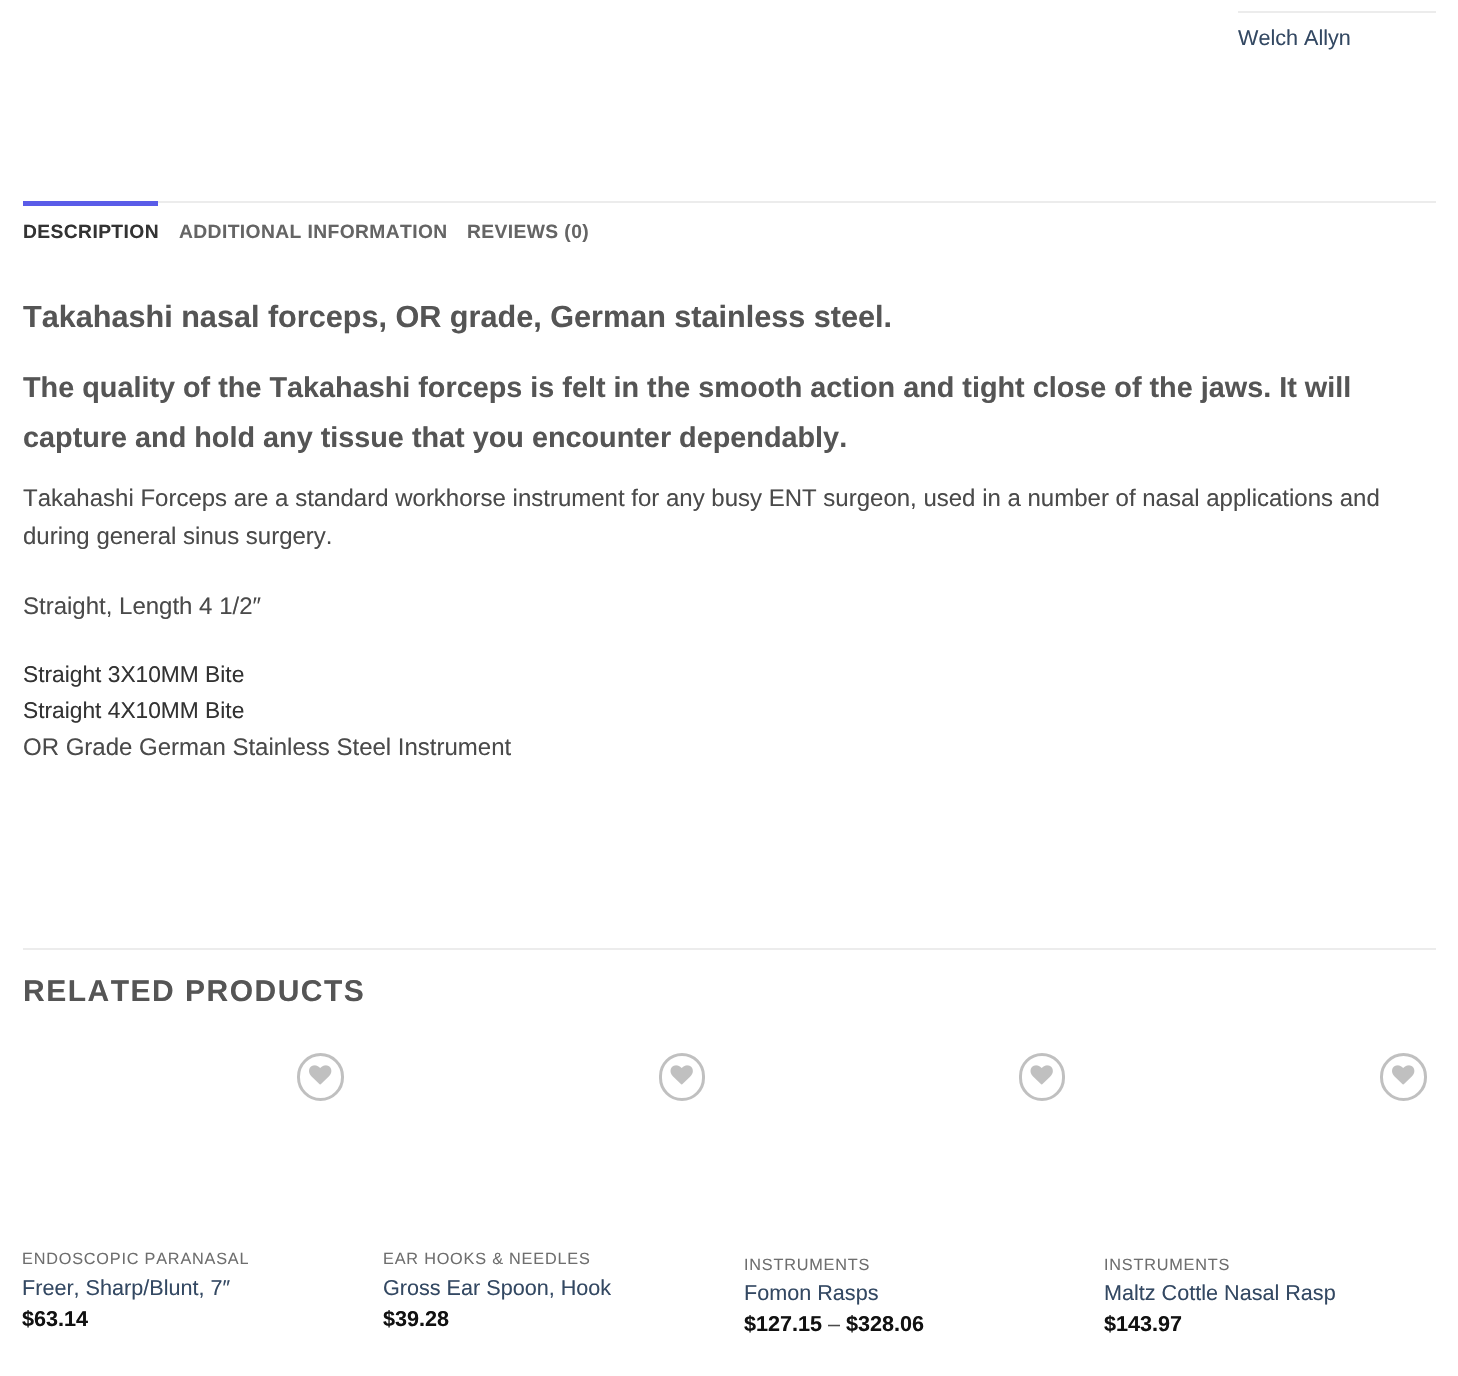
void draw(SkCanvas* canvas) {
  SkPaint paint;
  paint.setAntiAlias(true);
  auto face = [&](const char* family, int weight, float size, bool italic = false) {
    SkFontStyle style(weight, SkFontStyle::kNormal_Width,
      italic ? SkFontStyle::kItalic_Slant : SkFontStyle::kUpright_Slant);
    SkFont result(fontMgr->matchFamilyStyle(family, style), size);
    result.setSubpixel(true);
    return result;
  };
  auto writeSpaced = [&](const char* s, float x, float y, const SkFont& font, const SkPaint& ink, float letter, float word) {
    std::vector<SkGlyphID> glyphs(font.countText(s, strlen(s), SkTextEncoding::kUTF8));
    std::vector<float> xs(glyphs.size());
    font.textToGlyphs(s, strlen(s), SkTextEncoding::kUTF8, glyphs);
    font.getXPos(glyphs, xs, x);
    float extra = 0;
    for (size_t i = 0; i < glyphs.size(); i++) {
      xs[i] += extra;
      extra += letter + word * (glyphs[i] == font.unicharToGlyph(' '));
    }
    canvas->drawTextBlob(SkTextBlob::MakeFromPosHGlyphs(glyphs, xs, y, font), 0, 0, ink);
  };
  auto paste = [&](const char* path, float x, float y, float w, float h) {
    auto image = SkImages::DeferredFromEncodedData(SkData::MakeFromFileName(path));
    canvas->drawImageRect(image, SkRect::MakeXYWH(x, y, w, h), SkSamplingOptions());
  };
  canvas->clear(0xffffffff);
  {
    const struct { float x, y, w, h; SkColor color; } items[] = {
      {1238, 11, 198, 2, 0xffececec},
      {158, 201, 1278, 2, 0xffececec},
      {23, 201, 135, 5, 0xff5a5ce8},
      {23, 948, 1413, 2, 0xffececec},
    };
    for (auto [x, y, w, h, color] : items) {
      paint.setColor(color);
      canvas->drawRect(SkRect::MakeXYWH(x, y, w, h), paint);
    }
  }
  paint.setStroke(true);
  paint.setStrokeWidth(3);
  paint.setColor(0xffc0c0c0);
  canvas->drawRoundRect(SkRect::MakeXYWH(298.5f, 1054.5f, 44, 45), 22, 22, paint);
  paste("img/1.png", 309, 1065, 23, 20);
  canvas->drawRoundRect(SkRect::MakeXYWH(660.5f, 1054.5f, 43, 45), 21.5f, 21.5f, paint);
  paste("img/2.png", 670, 1065, 23, 20);
  canvas->drawRoundRect(SkRect::MakeXYWH(1020.5f, 1054.5f, 43, 45), 21.5f, 21.5f, paint);
  paste("img/2.png", 1030, 1065, 23, 20);
  canvas->drawRoundRect(SkRect::MakeXYWH(1381.5f, 1054.5f, 44, 45), 22, 22, paint);
  paste("img/1.png", 1392, 1065, 23, 20);
  auto f0 = face("Liberation Sans", 400, 21.6f);
  paint.setStroke(false);
  paint.setColor(0xff334862);
  canvas->drawString("Welch Allyn", 1238, 45, f0, paint);
  auto f1 = face("Liberation Sans", 700, 19.25f);
  paint.setColor(0xff333333);
  writeSpaced("DESCRIPTION", 23, 238, f1, paint, 0.4f, 0);
  paint.setColor(0xff656565);
  writeSpaced("ADDITIONAL INFORMATION", 179, 238, f1, paint, 0.4f, 0);
  writeSpaced("REVIEWS (0)", 467, 238, f1, paint, 0.4f, 0);
  auto f2 = face("Liberation Sans", 700, 30.6f);
  paint.setColor(0xff555555);
  canvas->drawString("Takahashi nasal forceps, OR grade, German stainless steel.", 23, 327, f2, paint);
  auto f3 = face("Liberation Sans", 700, 28.8f);
  canvas->drawString("The quality of the Takahashi forceps is felt in the smooth action and tight close of the jaws. It will", 23, 397, f3, paint);
  canvas->drawString("capture and hold any tissue that you encounter dependably.", 23, 447, f3, paint);
  auto f4 = face("Liberation Sans", 400, 24);
  paint.setColor(0xff4a4a4a);
  {
    const struct { const char* s; float x, y; } items[] = {
      {"Takahashi Forceps are a standard workhorse instrument for any busy ENT surgeon, used in a number of nasal applications and", 23, 506},
      {"during general sinus surgery.", 23, 544},
      {"Straight, Length 4 1/2″", 23, 614},
    };
    for (auto [s, x, y] : items) {
      canvas->drawString(s, x, y, f4, paint);
    }
  }
  auto f5 = face("Liberation Sans", 400, 22.75f);
  paint.setColor(0xff333333);
  canvas->drawString("Straight 3X10MM Bite", 23, 682, f5, paint);
  canvas->drawString("Straight 4X10MM Bite", 23, 718, f5, paint);
  paint.setColor(0xff4a4a4a);
  canvas->drawString("OR Grade German Stainless Steel Instrument", 23, 755, f4, paint);
  auto f6 = face("Liberation Sans", 700, 30);
  paint.setColor(0xff555555);
  writeSpaced("RELATED PRODUCTS", 23, 1001, f6, paint, 1.5f, 0);
  auto f7 = face("Liberation Sans", 400, 16.25f);
  paint.setColor(0xff6e6e6e);
  writeSpaced("ENDOSCOPIC PARANASAL", 22, 1264, f7, paint, 0.8f, 0);
  paint.setColor(0xff334862);
  canvas->drawString("Freer, Sharp/Blunt, 7″", 22, 1295, f0, paint);
  auto f8 = face("Liberation Sans", 700, 21.6f);
  paint.setColor(0xff111111);
  canvas->drawString("$63.14", 22, 1326, f8, paint);
  paint.setColor(0xff6e6e6e);
  writeSpaced("EAR HOOKS & NEEDLES", 383, 1264, f7, paint, 0.8f, 0);
  paint.setColor(0xff334862);
  canvas->drawString("Gross Ear Spoon, Hook", 383, 1295, f0, paint);
  paint.setColor(0xff111111);
  canvas->drawString("$39.28", 383, 1326, f8, paint);
  paint.setColor(0xff6e6e6e);
  writeSpaced("INSTRUMENTS", 744, 1270, f7, paint, 0.8f, 0);
  paint.setColor(0xff334862);
  canvas->drawString("Fomon Rasps", 744, 1300, f0, paint);
  paint.setColor(0xff111111);
  canvas->drawString("$127.15", 744, 1331, f8, paint);
  paint.setColor(0xff4a4a4a);
  canvas->drawString("–", 828, 1331, f0, paint);
  paint.setColor(0xff111111);
  canvas->drawString("$328.06", 846, 1331, f8, paint);
  paint.setColor(0xff6e6e6e);
  writeSpaced("INSTRUMENTS", 1104, 1270, f7, paint, 0.8f, 0);
  paint.setColor(0xff334862);
  canvas->drawString("Maltz Cottle Nasal Rasp", 1104, 1300, f0, paint);
  paint.setColor(0xff111111);
  canvas->drawString("$143.97", 1104, 1331, f8, paint);
}
